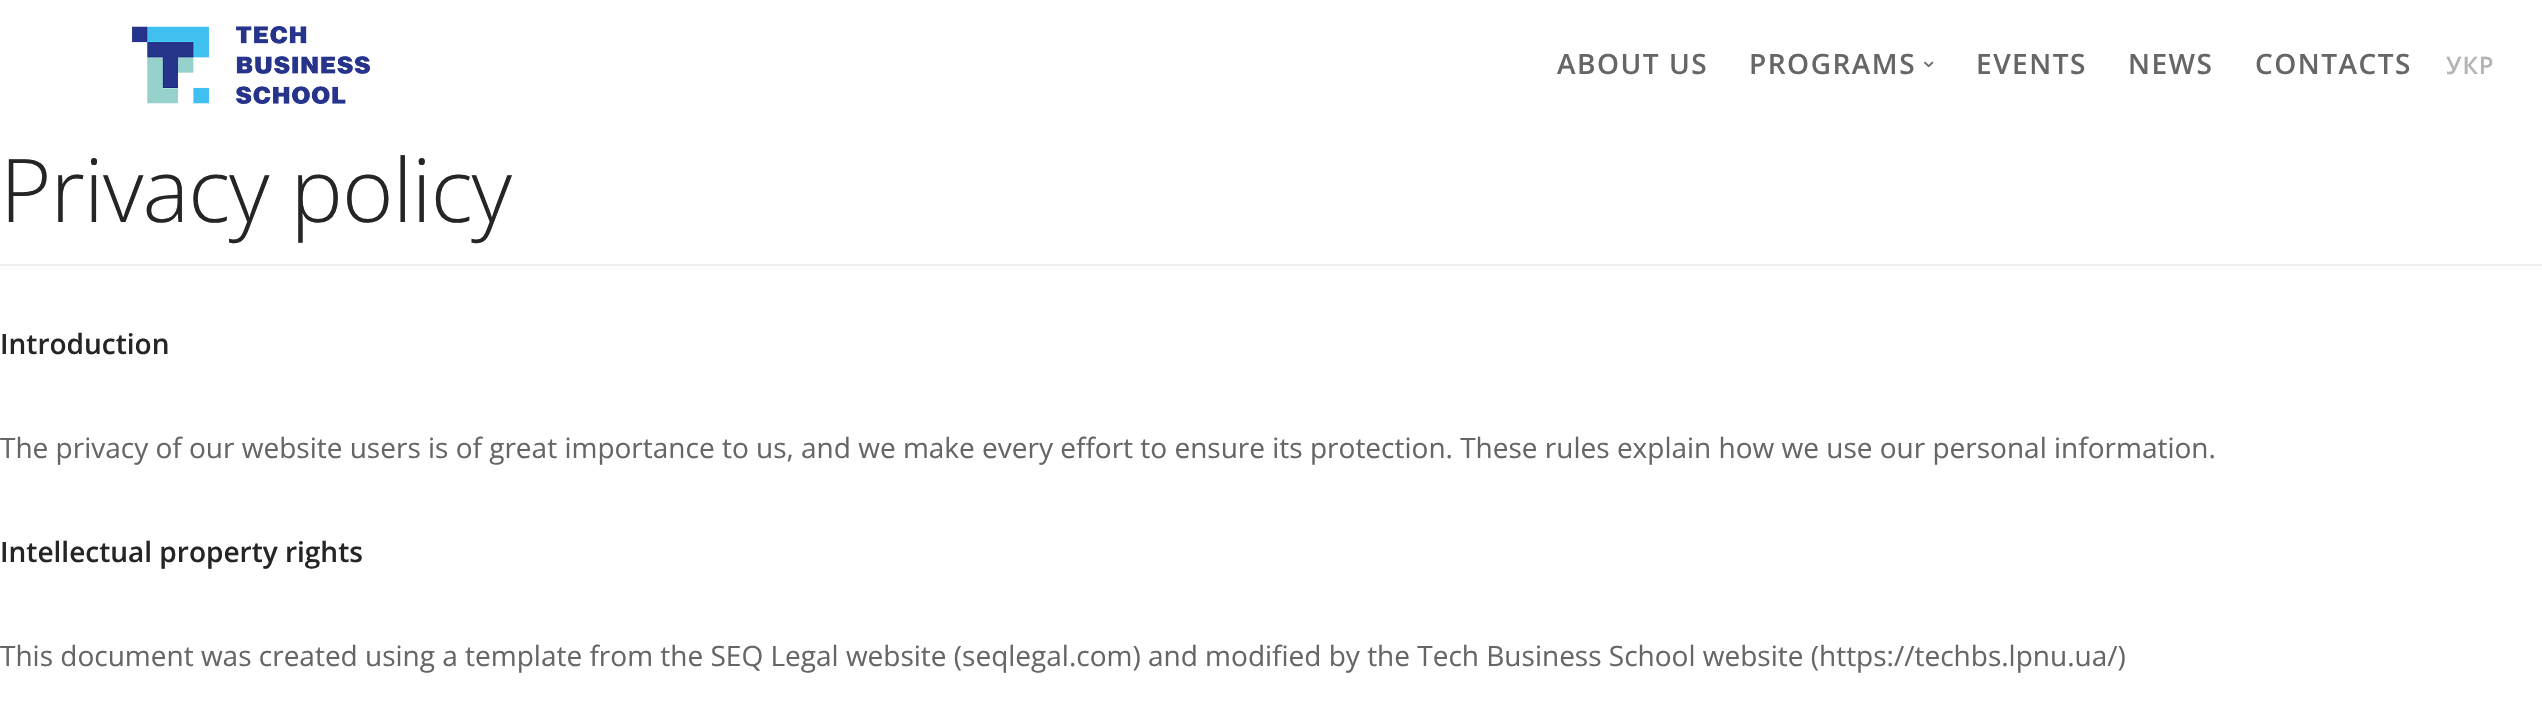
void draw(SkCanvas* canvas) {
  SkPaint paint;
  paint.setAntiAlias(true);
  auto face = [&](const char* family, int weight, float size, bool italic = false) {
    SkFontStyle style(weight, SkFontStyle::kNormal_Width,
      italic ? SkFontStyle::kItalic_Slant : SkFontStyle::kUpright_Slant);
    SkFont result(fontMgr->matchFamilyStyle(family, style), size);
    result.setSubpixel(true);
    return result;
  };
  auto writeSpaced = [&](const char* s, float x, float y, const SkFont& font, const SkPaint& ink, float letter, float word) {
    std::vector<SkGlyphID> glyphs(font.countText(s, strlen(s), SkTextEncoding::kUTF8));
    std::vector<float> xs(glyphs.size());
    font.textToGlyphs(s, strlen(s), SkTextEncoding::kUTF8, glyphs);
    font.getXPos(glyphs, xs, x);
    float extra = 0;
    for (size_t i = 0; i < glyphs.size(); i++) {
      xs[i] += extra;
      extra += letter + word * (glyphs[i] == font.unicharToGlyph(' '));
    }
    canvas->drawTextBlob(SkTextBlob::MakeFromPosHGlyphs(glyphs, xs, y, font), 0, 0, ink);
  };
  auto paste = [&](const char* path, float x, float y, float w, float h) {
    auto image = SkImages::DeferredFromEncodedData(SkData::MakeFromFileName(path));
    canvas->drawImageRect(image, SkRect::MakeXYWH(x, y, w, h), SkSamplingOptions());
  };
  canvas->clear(0xffffffff);
  paste("img/1.png", 132, 26, 238, 78);
  paste("img/2.png", 1924, 61, 10, 7);
  paint.setColor(0xffeeeeee);
  canvas->drawRect(SkRect::MakeXYWH(0, 264, 2542, 2), paint);
  auto f0 = face("Open Sans", 600, 28);
  paint.setColor(0xff666666);
  {
    const struct { const char* s; float x, y; } items[] = {
      {"ABOUT US", 1557, 74},
      {"PROGRAMS", 1749, 74},
      {"EVENTS", 1976, 74},
      {"NEWS", 2128, 74},
      {"CONTACTS", 2255, 74},
    };
    for (auto [s, x, y] : items) {
      writeSpaced(s, x, y, f0, paint, 1.5f, 0);
    }
  }
  auto f1 = face("Open Sans", 600, 24);
  paint.setColor(0xffb5b5b5);
  writeSpaced("УКР", 2446, 74, f1, paint, 1, 0);
  auto f2 = face("Open Sans", 300, 88);
  paint.setColor(0xff252525);
  writeSpaced("Privacy policy", 0, 222, f2, paint, -0.9f, 0);
  canvas->drawString("Introduction", 0, 354, f0, paint);
  auto f3 = face("Open Sans", 400, 28);
  paint.setColor(0xff666666);
  canvas->drawString("The privacy of our website users is of great importance to us, and we make every effort to ensure its protection. These rules explain how we use our personal information.", 0, 458, f3, paint);
  paint.setColor(0xff252525);
  canvas->drawString("Intellectual property rights", 0, 562, f0, paint);
  paint.setColor(0xff666666);
  canvas->drawString("This document was created using a template from the SEQ Legal website (seqlegal.com) and modified by the Tech Business School website (https://techbs.lpnu.ua/)", 0, 666, f3, paint);
}
